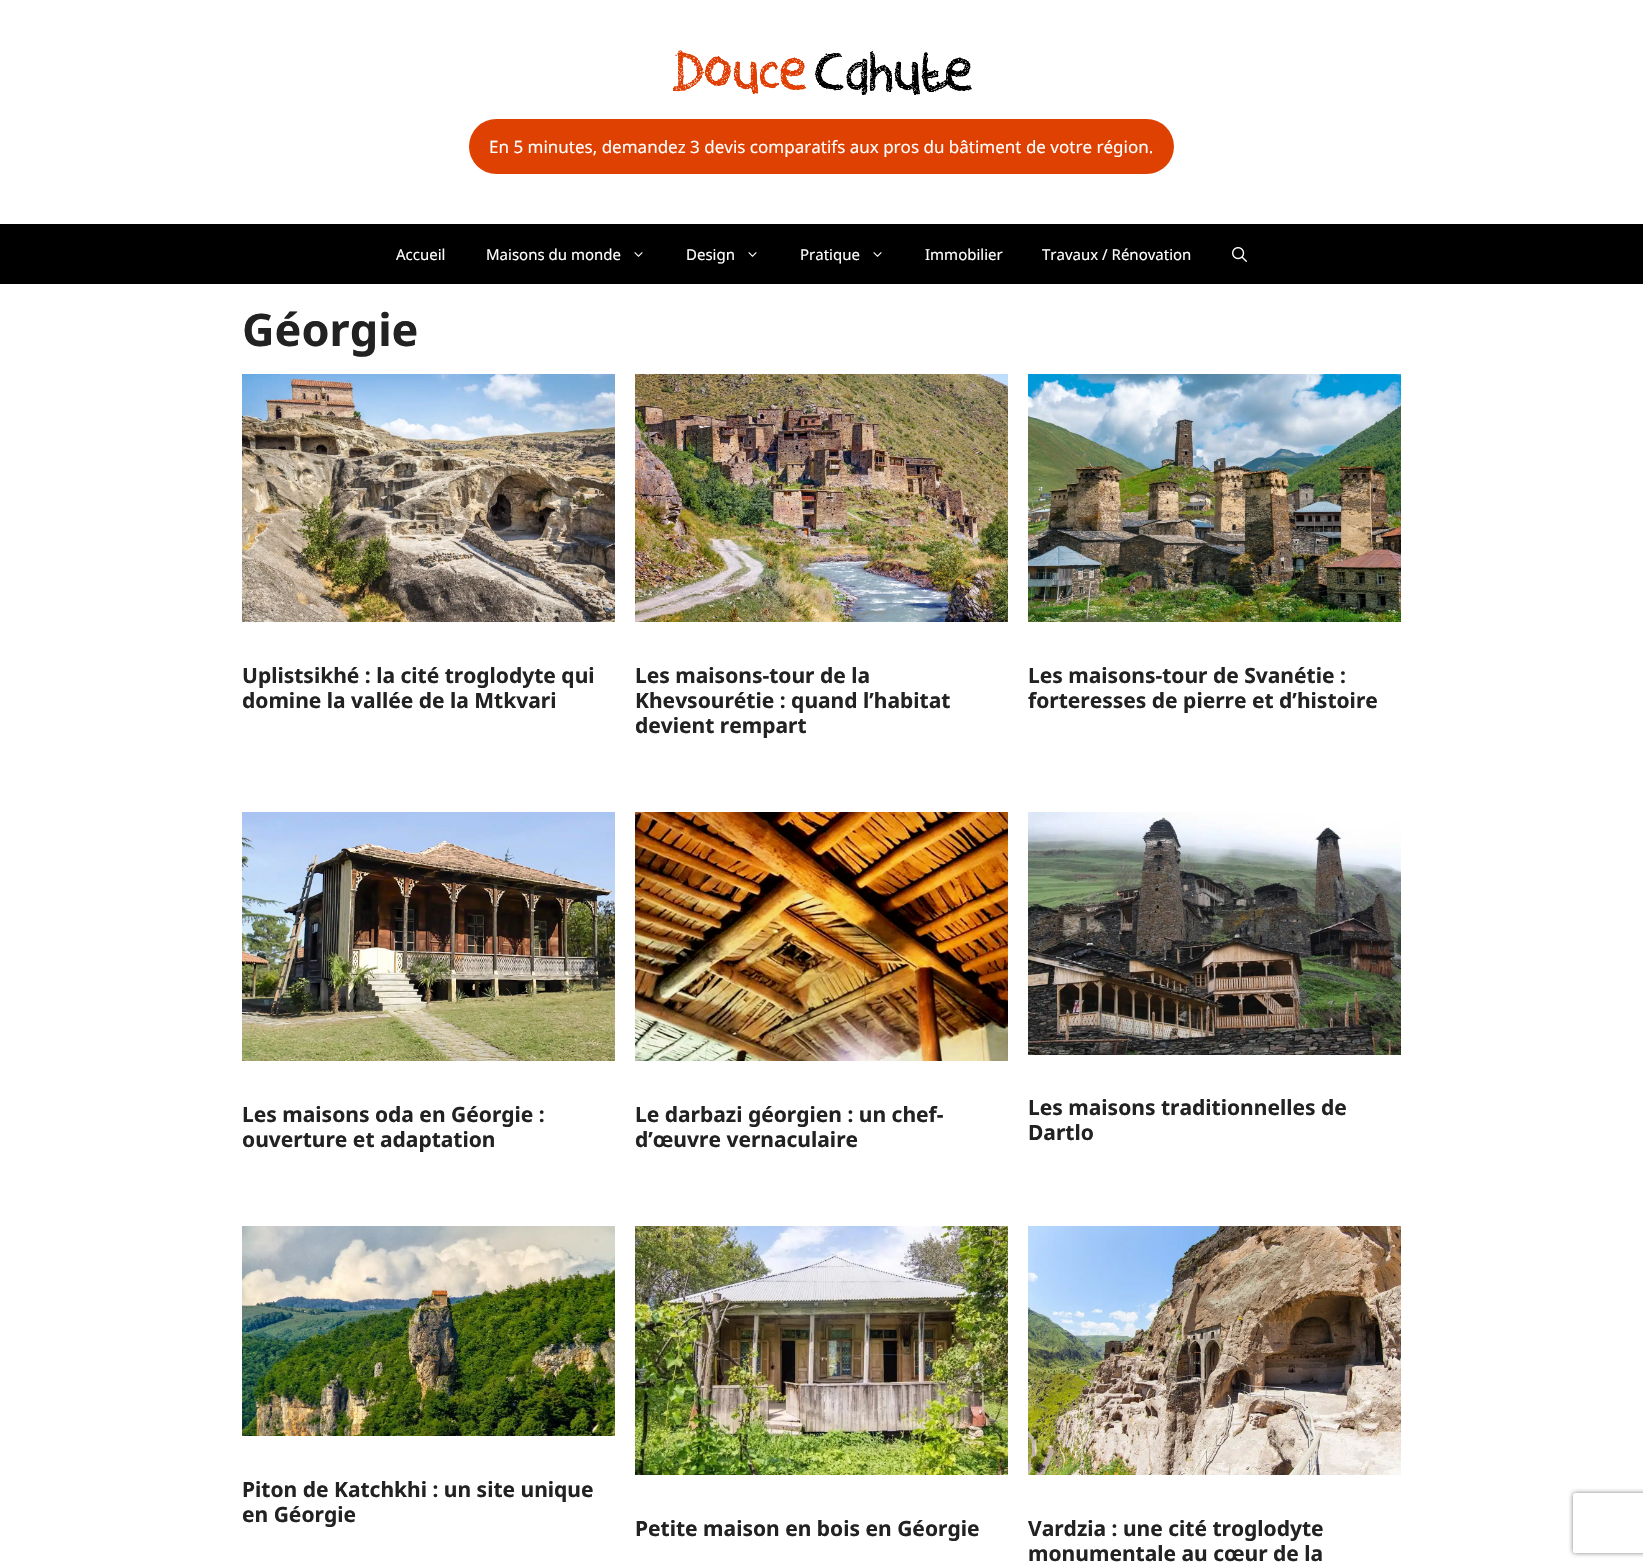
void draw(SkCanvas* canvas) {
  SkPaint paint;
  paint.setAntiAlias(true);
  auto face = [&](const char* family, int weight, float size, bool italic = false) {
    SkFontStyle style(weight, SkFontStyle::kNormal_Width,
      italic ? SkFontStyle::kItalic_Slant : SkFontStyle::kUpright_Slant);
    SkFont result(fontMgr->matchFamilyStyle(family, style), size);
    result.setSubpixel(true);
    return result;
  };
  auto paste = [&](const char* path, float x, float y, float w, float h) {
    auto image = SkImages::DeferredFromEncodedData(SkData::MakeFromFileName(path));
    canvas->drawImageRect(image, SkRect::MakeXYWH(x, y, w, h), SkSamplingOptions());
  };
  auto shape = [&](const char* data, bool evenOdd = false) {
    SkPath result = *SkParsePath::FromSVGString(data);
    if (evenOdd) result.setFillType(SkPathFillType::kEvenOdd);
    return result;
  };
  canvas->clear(0xffffffff);
  paste("img/1.png", 673, 50, 299, 45);
  paint.setColor(0xffdf4102);
  canvas->drawRoundRect(SkRect::MakeXYWH(469, 119, 705, 55), 27.5f, 27.5f, paint);
  paint.setColor(0xff000000);
  canvas->drawRect(SkRect::MakeXYWH(0, 224, 1643, 60), paint);
  paste("img/2.png", 634, 252, 9, 5);
  paste("img/2.png", 748, 252, 9, 5);
  paste("img/2.png", 873, 252, 9, 5);
  paste("img/3.png", 1232, 247, 15, 15);
  paste("img/4.png", 242, 374, 373, 248);
  paste("img/5.png", 635, 374, 373, 248);
  paste("img/6.png", 1028, 374, 373, 248);
  paste("img/7.png", 242, 812, 373, 249);
  paste("img/8.png", 635, 812, 373, 249);
  paste("img/9.png", 1028, 812, 373, 243);
  paste("img/10.png", 242, 1226, 373, 210);
  paste("img/11.png", 635, 1226, 373, 249);
  paste("img/12.png", 1028, 1226, 373, 249);
  canvas->save();
  canvas->clipPath(shape("M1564 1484H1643V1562H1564ZM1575 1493H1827C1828 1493 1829 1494 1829 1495V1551C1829 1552 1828 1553 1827 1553H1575C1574 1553 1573 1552 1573 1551V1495C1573 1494 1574 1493 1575 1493Z", true), true);
  paint.setColor(0xff808080);
  paint.setMaskFilter(SkMaskFilter::MakeBlur(kNormal_SkBlurStyle, 2.5f));
  canvas->drawRoundRect(SkRect::MakeXYWH(1573, 1493, 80, 60), 2, 2, paint);
  paint.setMaskFilter(nullptr);
  canvas->restore();
  auto f0 = face("Noto Sans", 400, 17);
  paint.setColor(0xffffffff);
  canvas->drawString("En 5 minutes, demandez 3 devis comparatifs aux pros du bâtiment de votre région.", 489, 153, f0, paint);
  auto f1 = face("Noto Sans", 400, 15);
  {
    const struct { const char* s; float x, y; } items[] = {
      {"Accueil", 396, 260},
      {"Maisons du monde", 486, 260},
      {"Design", 686, 260},
      {"Pratique", 800, 260},
      {"Immobilier", 925, 260},
      {"Travaux / Rénovation", 1042, 260},
    };
    for (auto [s, x, y] : items) {
      canvas->drawString(s, x, y, f1, paint);
    }
  }
  auto f2 = face("Noto Sans", 700, 45);
  paint.setColor(0xff222222);
  canvas->drawString("Géorgie", 242, 346, f2, paint);
  auto f3 = face("Noto Sans", 700, 21);
  {
    const struct { const char* s; float x, y; } items[] = {
      {"Uplistsikhé : la cité troglodyte qui", 242, 683},
      {"domine la vallée de la Mtkvari", 242, 708},
      {"Les maisons-tour de la", 635, 683},
      {"Khevsourétie : quand l’habitat", 635, 708},
      {"devient rempart", 635, 733},
      {"Les maisons-tour de Svanétie :", 1028, 683},
      {"forteresses de pierre et d’histoire", 1028, 708},
      {"Les maisons oda en Géorgie :", 242, 1122},
      {"ouverture et adaptation", 242, 1147},
      {"Le darbazi géorgien : un chef-", 635, 1122},
      {"d’œuvre vernaculaire", 635, 1147},
      {"Les maisons traditionnelles de", 1028, 1115},
      {"Dartlo", 1028, 1140},
      {"Piton de Katchkhi : un site unique", 242, 1497},
      {"en Géorgie", 242, 1522},
      {"Petite maison en bois en Géorgie", 635, 1536},
      {"Vardzia : une cité troglodyte", 1028, 1536},
      {"monumentale au cœur de la", 1028, 1561},
    };
    for (auto [s, x, y] : items) {
      canvas->drawString(s, x, y, f3, paint);
    }
  }
}
